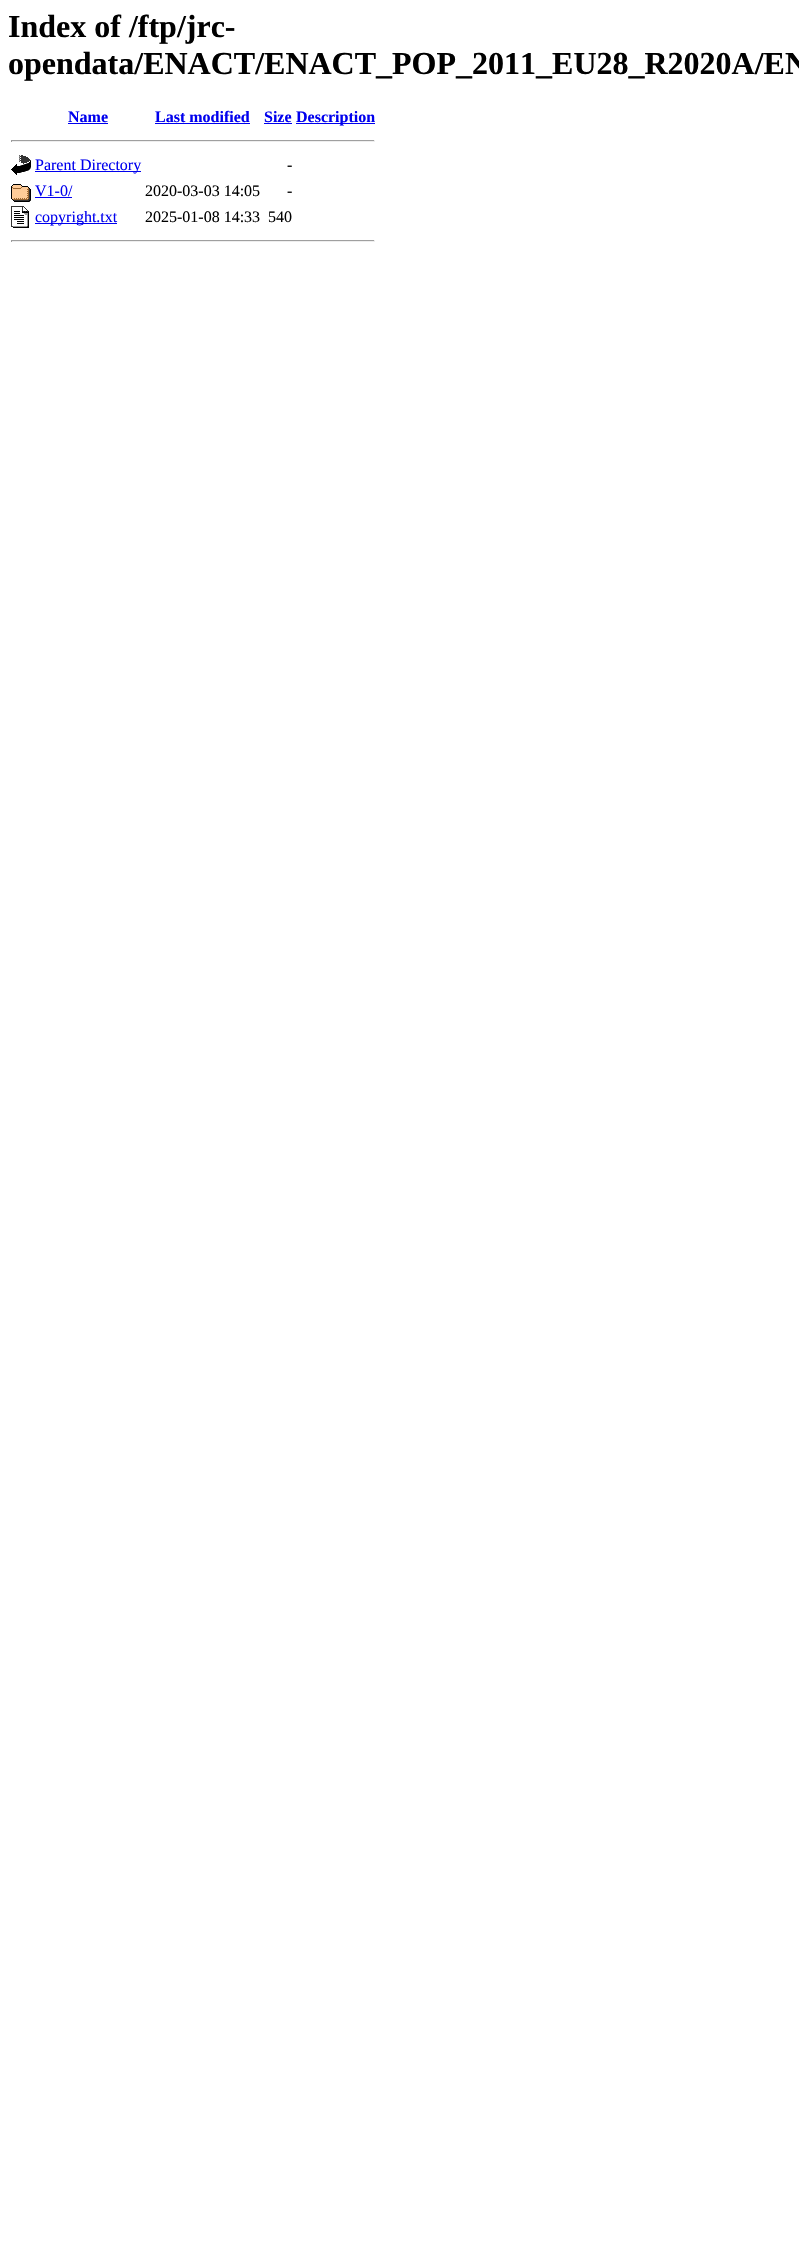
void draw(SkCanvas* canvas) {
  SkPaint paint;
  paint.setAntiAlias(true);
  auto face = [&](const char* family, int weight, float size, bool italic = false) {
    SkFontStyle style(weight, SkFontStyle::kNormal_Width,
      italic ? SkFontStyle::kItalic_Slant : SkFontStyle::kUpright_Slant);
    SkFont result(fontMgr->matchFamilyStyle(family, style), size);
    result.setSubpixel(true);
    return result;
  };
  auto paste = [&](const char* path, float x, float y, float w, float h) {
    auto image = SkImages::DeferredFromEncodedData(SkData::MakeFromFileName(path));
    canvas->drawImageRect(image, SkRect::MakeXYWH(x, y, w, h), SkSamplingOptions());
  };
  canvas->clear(0xffffffff);
  {
    const struct { float x, y, w, h; SkColor color; } items[] = {
      {68, 123, 40, 1, 0xff0000ee},
      {155, 123, 95, 1, 0xff0000ee},
      {264, 123, 28, 1, 0xff0000ee},
      {296, 123, 79, 1, 0xff0000ee},
      {11, 140, 364, 1, 0xff9f9f9f},
      {374, 140, 1, 2, 0xffeeeeee},
      {11, 141, 364, 1, 0xffeeeeee},
      {11, 140, 1, 2, 0xff9f9f9f},
    };
    for (auto [x, y, w, h, color] : items) {
      paint.setColor(color);
      canvas->drawRect(SkRect::MakeXYWH(x, y, w, h), paint);
    }
  }
  paste("img/1.png", 11, 155, 20, 20);
  paint.setColor(0xff0000ee);
  canvas->drawRect(SkRect::MakeXYWH(35, 171, 106, 1), paint);
  paste("img/2.png", 11, 184, 20, 18);
  canvas->drawRect(SkRect::MakeXYWH(35, 197, 37, 1), paint);
  paste("img/3.png", 11, 206, 18, 22);
  {
    const struct { float x, y, w, h; SkColor color; } items[] = {
      {35, 223, 82, 1, 0xff0000ee},
      {11, 240, 364, 1, 0xff9f9f9f},
      {374, 240, 1, 2, 0xffeeeeee},
      {11, 241, 364, 1, 0xffeeeeee},
      {11, 240, 1, 2, 0xff9f9f9f},
    };
    for (auto [x, y, w, h, color] : items) {
      paint.setColor(color);
      canvas->drawRect(SkRect::MakeXYWH(x, y, w, h), paint);
    }
  }
  auto f0 = face("Liberation Serif", 700, 32);
  paint.setColor(0xff000000);
  canvas->drawString("Index of /ftp/jrc-", 8, 37, f0, paint);
  canvas->drawString("opendata/ENACT/ENACT_POP_2011_EU28_R2020A/EN", 8, 74, f0, paint);
  auto f1 = face("Liberation Serif", 700, 16);
  paint.setColor(0xff0000ee);
  {
    const struct { const char* s; float x, y; } items[] = {
      {"Name", 68, 122},
      {"Last modified", 155, 122},
      {"Size", 264, 122},
      {"Description", 296, 122},
    };
    for (auto [s, x, y] : items) {
      canvas->drawString(s, x, y, f1, paint);
    }
  }
  auto f2 = face("Liberation Serif", 400, 16);
  canvas->drawString("Parent Directory", 35, 170, f2, paint);
  paint.setColor(0xff000000);
  canvas->drawString("-", 287, 170, f2, paint);
  paint.setColor(0xff0000ee);
  canvas->drawString("V1-0/", 35, 196, f2, paint);
  paint.setColor(0xff000000);
  canvas->drawString("2020-03-03 14:05", 145, 196, f2, paint);
  canvas->drawString("-", 287, 196, f2, paint);
  paint.setColor(0xff0000ee);
  canvas->drawString("copyright.txt", 35, 222, f2, paint);
  paint.setColor(0xff000000);
  canvas->drawString("2025-01-08 14:33", 145, 222, f2, paint);
  canvas->drawString("540", 268, 222, f2, paint);
}
